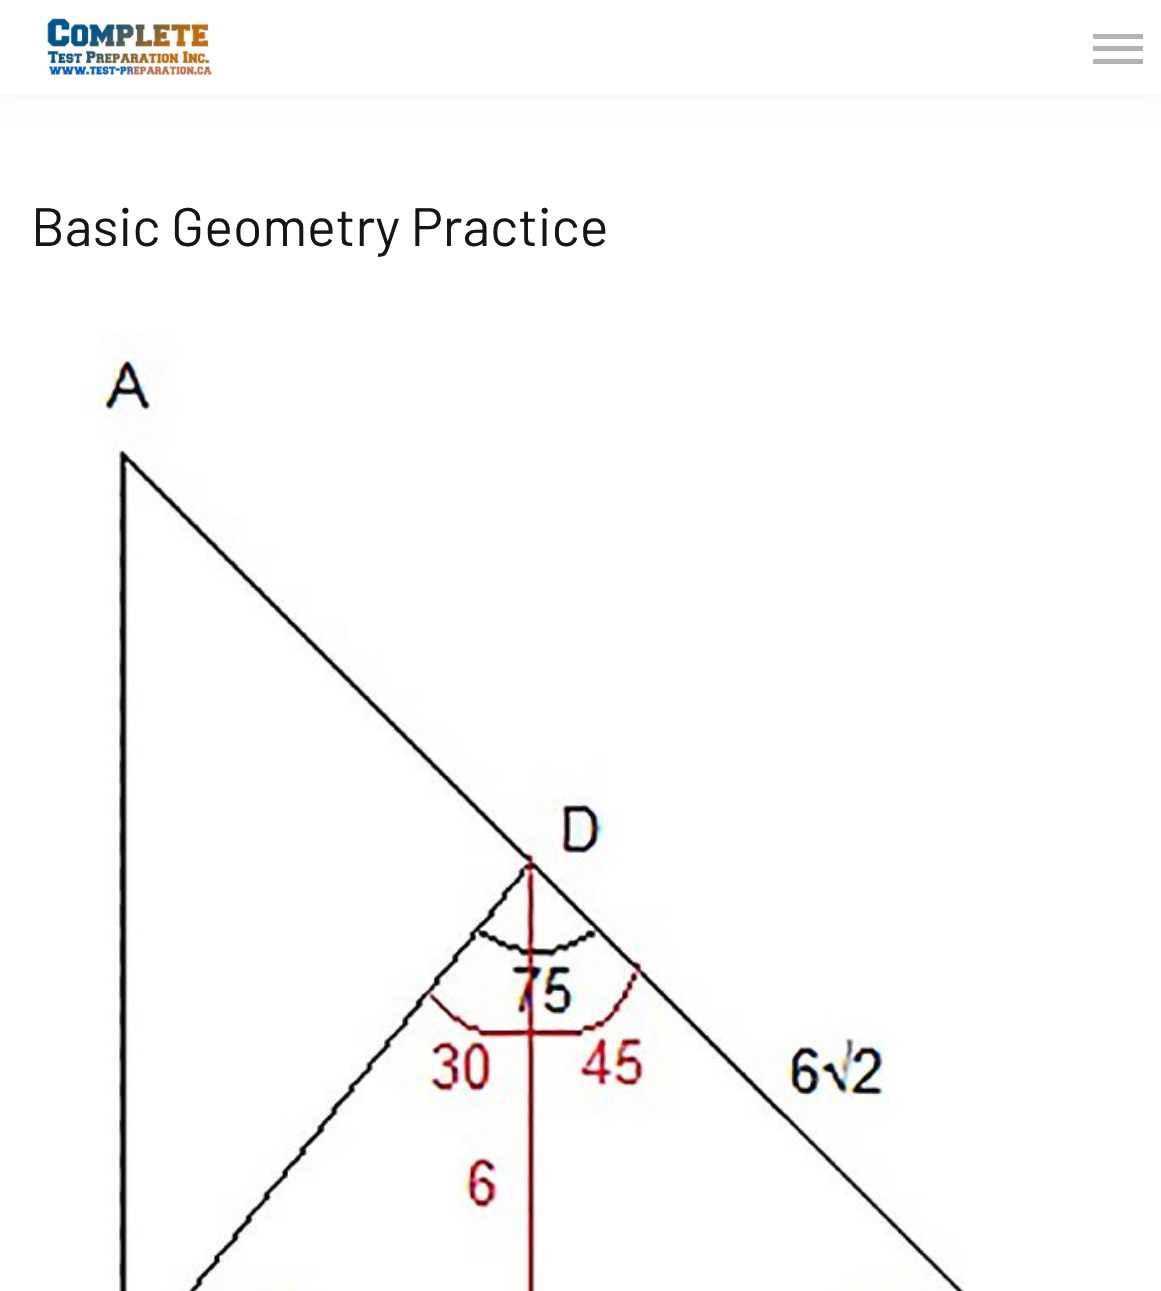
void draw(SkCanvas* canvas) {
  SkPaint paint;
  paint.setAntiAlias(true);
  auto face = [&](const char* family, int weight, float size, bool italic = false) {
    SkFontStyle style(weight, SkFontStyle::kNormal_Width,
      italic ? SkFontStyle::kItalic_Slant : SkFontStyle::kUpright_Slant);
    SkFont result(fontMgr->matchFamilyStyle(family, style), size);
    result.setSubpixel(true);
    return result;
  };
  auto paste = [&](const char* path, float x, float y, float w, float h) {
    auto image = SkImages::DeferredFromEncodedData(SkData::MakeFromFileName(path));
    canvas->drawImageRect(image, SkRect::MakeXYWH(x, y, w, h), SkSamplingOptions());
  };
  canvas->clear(0xffffffff);
  paint.setColor(0x0d000000);
  paint.setMaskFilter(SkMaskFilter::MakeBlur(kNormal_SkBlurStyle, 9.5f));
  canvas->drawRect(SkRect::MakeXYWH(0, 0, 1161, 94), paint);
  paint.setMaskFilter(nullptr);
  paint.setColor(0xffffffff);
  canvas->drawRect(SkRect::MakeXYWH(0, 0, 1161, 94), paint);
  paste("img/1.png", 47, 18, 165, 57);
  {
    const struct { float x, y, w, h; SkColor color; } items[] = {
      {1093, 59, 50, 5, 0xffb4b4b4},
      {1093, 34, 50, 5, 0xffb4b4b4},
      {1093, 46, 50, 5, 0xffb4b4b4},
    };
    for (auto [x, y, w, h, color] : items) {
      paint.setColor(color);
      canvas->drawRect(SkRect::MakeXYWH(x, y, w, h), paint);
    }
  }
  paste("img/2.png", 84, 331, 880, 960);
  auto f0 = face("Barlow", 400, 54);
  paint.setColor(0xff151515);
  canvas->drawString("Basic Geometry Practice", 31, 246, f0, paint);
}
